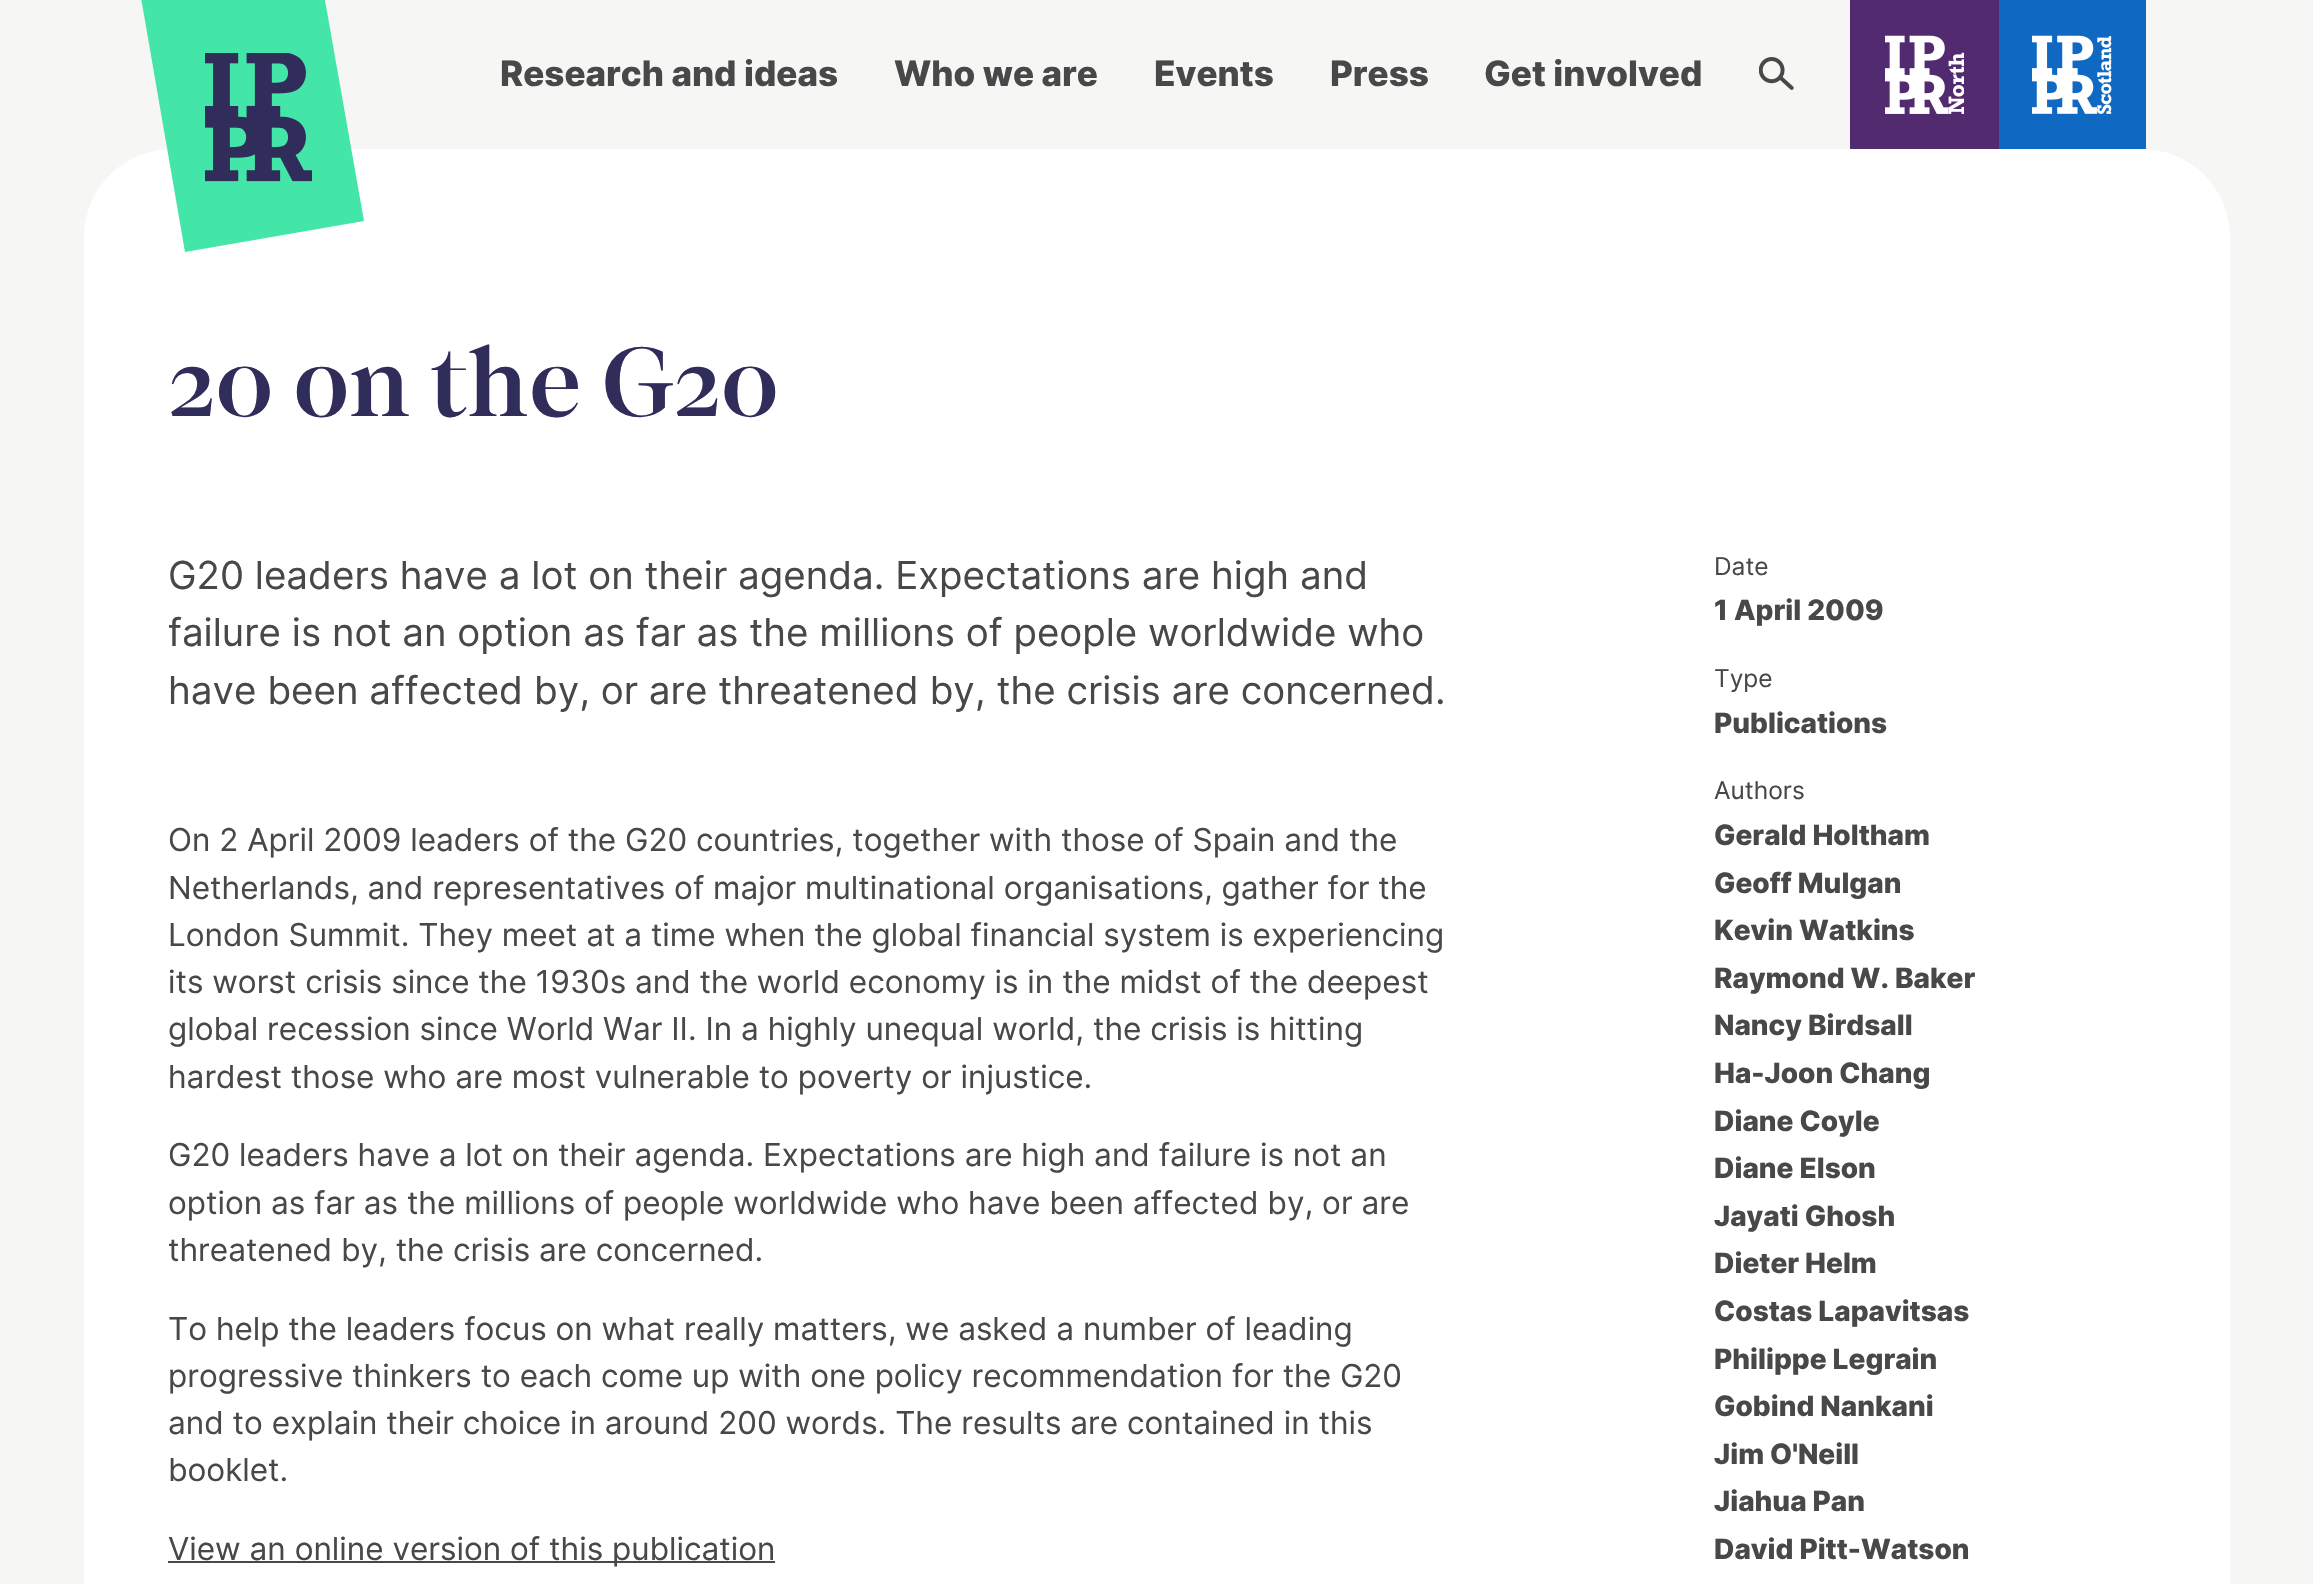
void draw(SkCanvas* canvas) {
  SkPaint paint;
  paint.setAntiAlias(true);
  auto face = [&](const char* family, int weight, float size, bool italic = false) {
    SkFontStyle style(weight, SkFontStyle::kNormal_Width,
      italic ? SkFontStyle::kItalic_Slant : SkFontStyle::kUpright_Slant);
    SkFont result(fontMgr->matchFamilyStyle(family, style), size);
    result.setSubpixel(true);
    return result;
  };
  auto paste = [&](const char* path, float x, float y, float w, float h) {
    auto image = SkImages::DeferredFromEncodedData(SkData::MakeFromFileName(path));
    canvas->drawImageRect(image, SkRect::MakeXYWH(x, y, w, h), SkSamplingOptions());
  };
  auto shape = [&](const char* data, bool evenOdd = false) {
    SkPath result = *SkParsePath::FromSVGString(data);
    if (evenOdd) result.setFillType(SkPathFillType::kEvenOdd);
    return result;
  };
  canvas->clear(0xfff6f6f4);
  paint.setColor(0xffffffff);
  canvas->drawRoundRect(SkRect::MakeXYWH(84, 149, 2146, 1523), 88, 88, paint);
  paint.setColor(0xff44e5a8);
  canvas->drawPath(shape("M139-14L317-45L364 221L185 252Z"), paint);
  paste("img/1.png", 205, 53, 107, 129);
  paste("img/2.png", 1759, 57, 35, 33);
  paint.setColor(0xff522a6f);
  canvas->drawRect(SkRect::MakeXYWH(1850, 0, 149, 149), paint);
  paste("img/3.png", 1885, 35, 79, 79);
  paint.setColor(0xff0f68c2);
  canvas->drawRect(SkRect::MakeXYWH(1999, 0, 147, 149), paint);
  paste("img/4.png", 2032, 35, 80, 79);
  paint.setColor(0xff484848);
  canvas->drawRect(SkRect::MakeXYWH(168, 1561, 607, 2), paint);
  auto f0 = face("Inter", 800, 35);
  {
    const struct { const char* s; float x, y; } items[] = {
      {"Research and ideas", 500, 86},
      {"Who we are", 894, 86},
      {"Events", 1154, 86},
      {"Press", 1330, 86},
      {"Get involved", 1484, 86},
    };
    for (auto [s, x, y] : items) {
      canvas->drawString(s, x, y, f0, paint);
    }
  }
  auto f1 = face("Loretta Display", 600, 98);
  paint.setColor(0xff312d5a);
  canvas->drawString("20 on the G20", 168, 416, f1, paint);
  auto f2 = face("Inter", 400, 38.5f);
  paint.setColor(0xff484848);
  {
    const struct { const char* s; float x, y; } items[] = {
      {"G20 leaders have a lot on their agenda. Expectations are high and", 168, 589},
      {"failure is not an option as far as the millions of people worldwide who", 168, 646},
      {"have been affected by, or are threatened by, the crisis are concerned.", 168, 704},
    };
    for (auto [s, x, y] : items) {
      canvas->drawString(s, x, y, f2, paint);
    }
  }
  auto f3 = face("Inter", 400, 31.5f);
  {
    const struct { const char* s; float x, y; } items[] = {
      {"On 2 April 2009 leaders of the G20 countries, together with those of Spain and the", 168, 851},
      {"Netherlands, and representatives of major multinational organisations, gather for the", 168, 899},
      {"London Summit. They meet at a time when the global financial system is experiencing", 168, 946},
      {"its worst crisis since the 1930s and the world economy is in the midst of the deepest", 168, 993},
      {"global recession since World War II. In a highly unequal world, the crisis is hitting", 168, 1040},
      {"hardest those who are most vulnerable to poverty or injustice.", 168, 1088},
      {"G20 leaders have a lot on their agenda. Expectations are high and failure is not an", 168, 1166},
      {"option as far as the millions of people worldwide who have been affected by, or are", 168, 1214},
      {"threatened by, the crisis are concerned.", 168, 1261},
      {"To help the leaders focus on what really matters, we asked a number of leading", 168, 1340},
      {"progressive thinkers to each come up with one policy recommendation for the G20", 168, 1387},
      {"and to explain their choice in around 200 words. The results are contained in this", 168, 1434},
      {"booklet.", 168, 1481},
      {"View an online version of this publication", 168, 1560},
    };
    for (auto [s, x, y] : items) {
      canvas->drawString(s, x, y, f3, paint);
    }
  }
  auto f4 = face("Inter", 400, 24.5f);
  canvas->drawString("Date", 1714, 575, f4, paint);
  auto f5 = face("Inter", 800, 28);
  canvas->drawString("1 April 2009", 1714, 620, f5, paint);
  canvas->drawString("Type", 1714, 687, f4, paint);
  canvas->drawString("Publications", 1714, 733, f5, paint);
  canvas->drawString("Authors", 1714, 799, f4, paint);
  {
    const struct { const char* s; float x, y; } items[] = {
      {"Gerald Holtham", 1714, 845},
      {"Geoff Mulgan", 1714, 893},
      {"Kevin Watkins", 1714, 940},
      {"Raymond W. Baker", 1714, 988},
      {"Nancy Birdsall", 1714, 1035},
      {"Ha-Joon Chang", 1714, 1083},
      {"Diane Coyle", 1714, 1131},
      {"Diane Elson", 1714, 1178},
      {"Jayati Ghosh", 1714, 1226},
      {"Dieter Helm", 1714, 1273},
      {"Costas Lapavitsas", 1714, 1321},
      {"Philippe Legrain", 1714, 1369},
      {"Gobind Nankani", 1714, 1416},
      {"Jim O'Neill", 1714, 1464},
      {"Jiahua Pan", 1714, 1511},
      {"David Pitt-Watson", 1714, 1559},
    };
    for (auto [s, x, y] : items) {
      canvas->drawString(s, x, y, f5, paint);
    }
  }
}
